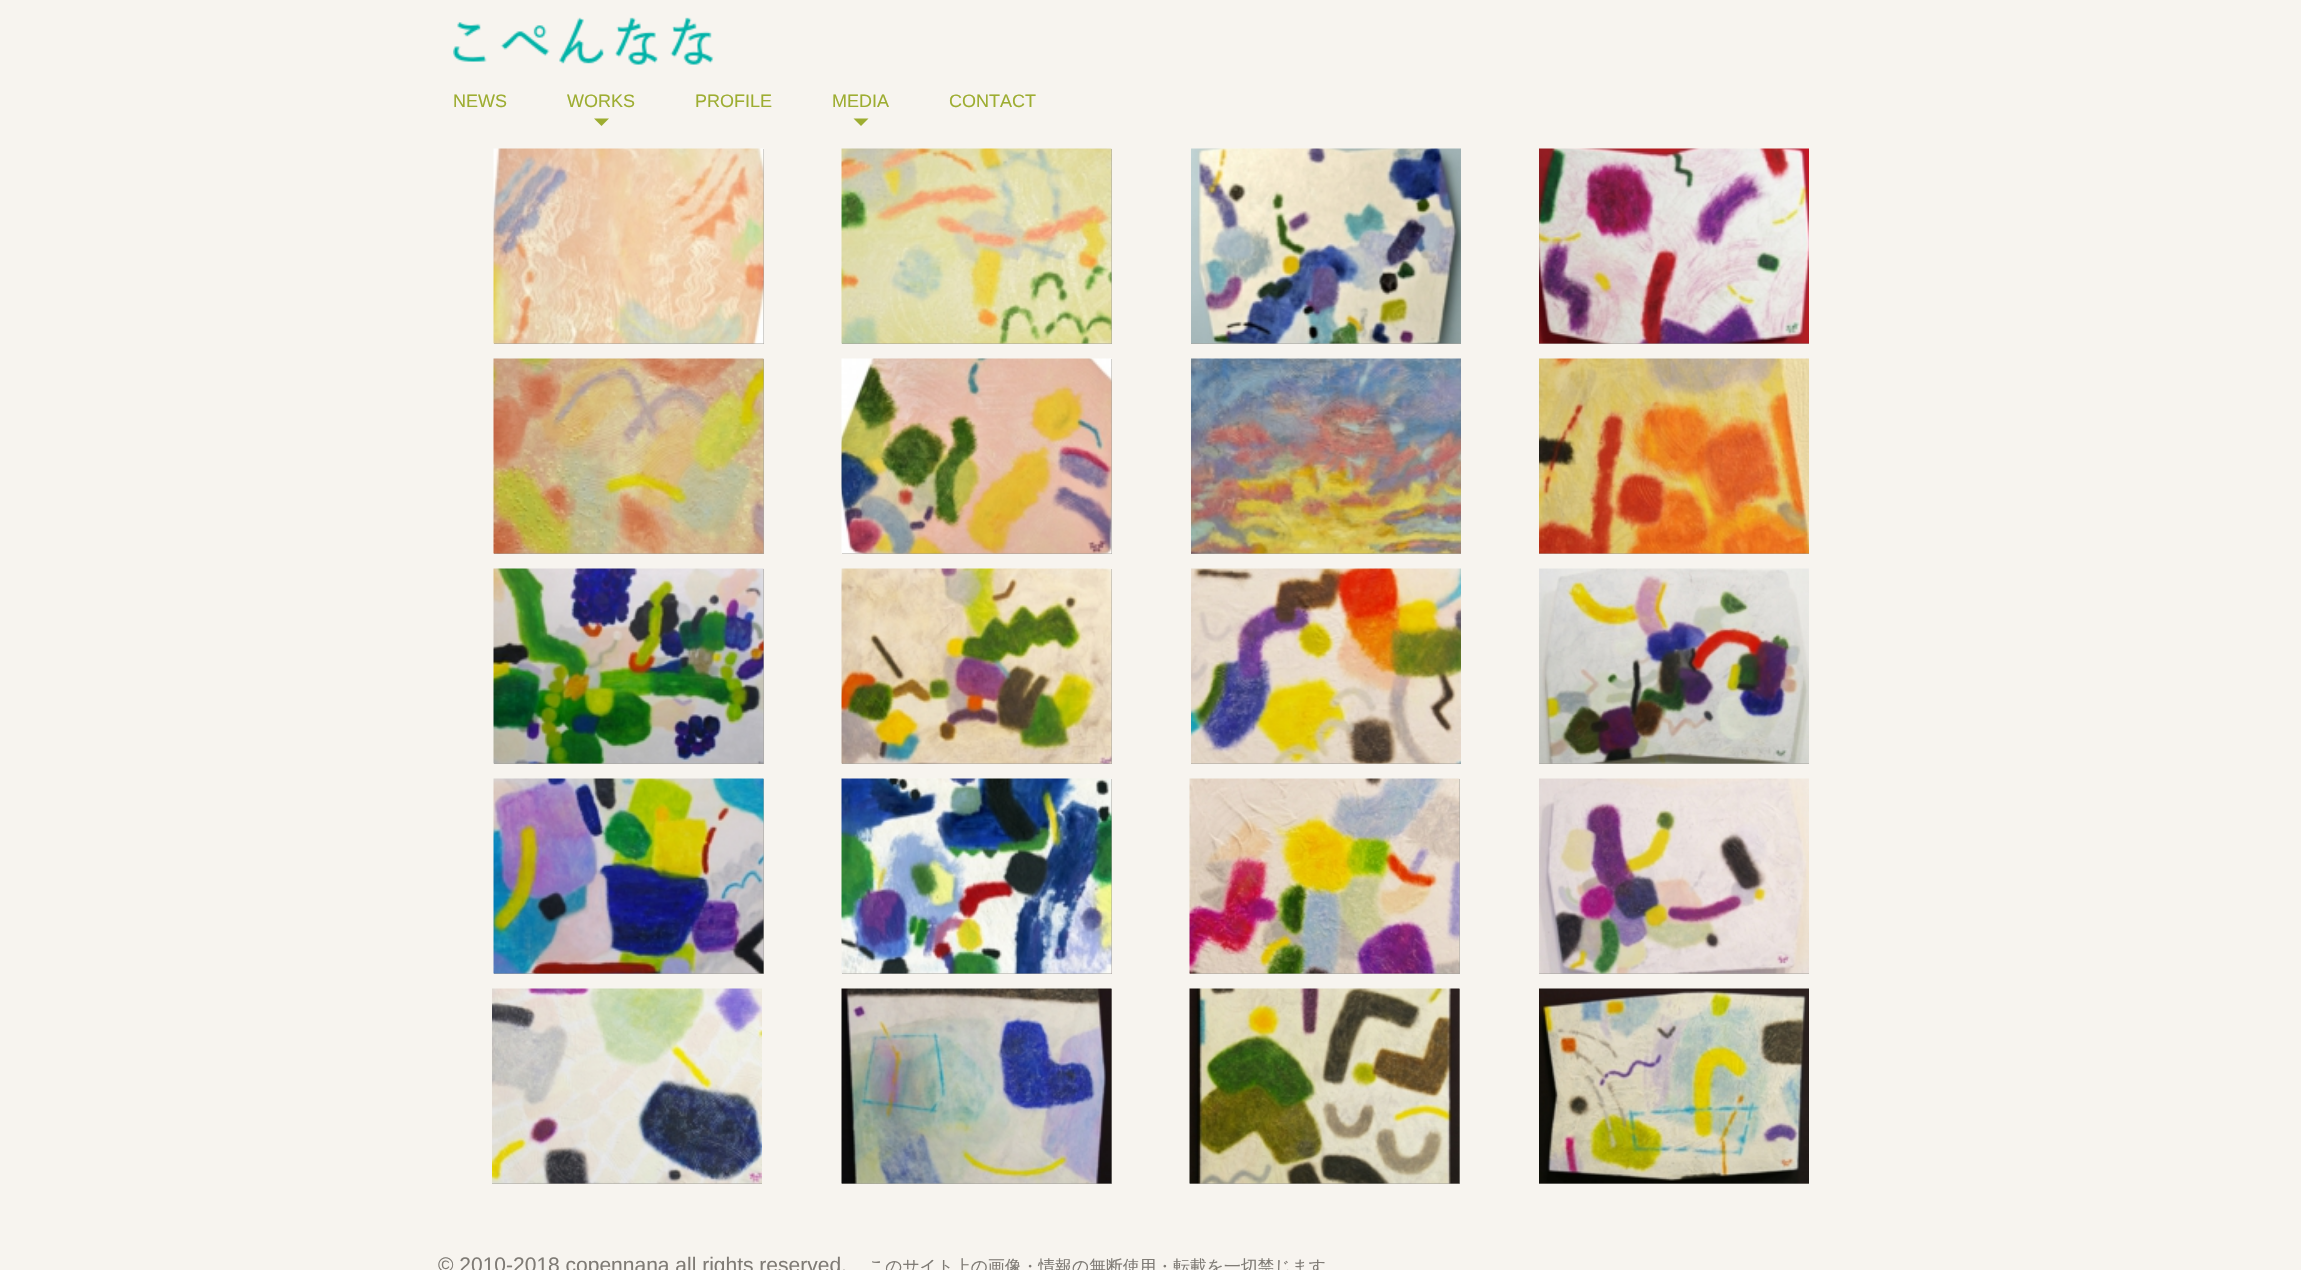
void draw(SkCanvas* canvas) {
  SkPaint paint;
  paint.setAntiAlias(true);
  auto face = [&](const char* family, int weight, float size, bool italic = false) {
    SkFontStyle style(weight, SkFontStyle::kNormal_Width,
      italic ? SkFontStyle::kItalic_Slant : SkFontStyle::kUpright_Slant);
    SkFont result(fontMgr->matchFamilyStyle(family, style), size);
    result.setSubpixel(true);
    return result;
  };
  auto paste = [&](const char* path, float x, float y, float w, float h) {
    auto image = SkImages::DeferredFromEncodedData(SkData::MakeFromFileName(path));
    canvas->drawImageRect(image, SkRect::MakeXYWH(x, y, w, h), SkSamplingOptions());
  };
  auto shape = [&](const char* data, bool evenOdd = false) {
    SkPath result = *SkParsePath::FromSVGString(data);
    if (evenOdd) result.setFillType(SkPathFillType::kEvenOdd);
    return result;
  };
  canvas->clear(0xfff7f4ef);
  paste("img/1.png", 453, 17, 261, 48);
  paint.setColor(0xff9dad31);
  canvas->drawPath(shape("M594 118.5H609L601.5 126Z"), paint);
  canvas->drawPath(shape("M853.5 118.5H868.5L861 126Z"), paint);
  paint.setColor(0xffa5a29d);
  canvas->drawRect(SkRect::MakeXYWH(494, 149, 270, 195), paint);
  paste("img/2.png", 493, 148, 271, 196);
  canvas->drawRect(SkRect::MakeXYWH(842, 149, 270, 195), paint);
  paste("img/3.png", 841, 148, 271, 196);
  canvas->drawRect(SkRect::MakeXYWH(1191, 343, 270, 1), paint);
  paste("img/4.png", 1191, 148, 270, 196);
  canvas->drawRect(SkRect::MakeXYWH(1539, 343, 270, 1), paint);
  paste("img/5.png", 1539, 148, 270, 196);
  canvas->drawRect(SkRect::MakeXYWH(494, 359, 270, 195), paint);
  paste("img/6.png", 493, 358, 271, 196);
  canvas->drawRect(SkRect::MakeXYWH(842, 359, 270, 195), paint);
  paste("img/7.png", 841, 358, 271, 196);
  canvas->drawRect(SkRect::MakeXYWH(1191, 553, 270, 1), paint);
  paste("img/8.png", 1191, 358, 270, 196);
  canvas->drawRect(SkRect::MakeXYWH(1539, 553, 270, 1), paint);
  paste("img/9.png", 1539, 358, 270, 196);
  canvas->drawRect(SkRect::MakeXYWH(494, 569, 270, 195), paint);
  paste("img/10.png", 493, 568, 271, 196);
  canvas->drawRect(SkRect::MakeXYWH(842, 569, 270, 195), paint);
  paste("img/11.png", 841, 568, 271, 196);
  canvas->drawRect(SkRect::MakeXYWH(1191, 763, 270, 1), paint);
  paste("img/12.png", 1191, 568, 270, 196);
  canvas->drawRect(SkRect::MakeXYWH(1539, 763, 270, 1), paint);
  paste("img/13.png", 1539, 568, 270, 196);
  canvas->drawRect(SkRect::MakeXYWH(494, 779, 270, 195), paint);
  paste("img/14.png", 493, 778, 271, 196);
  canvas->drawRect(SkRect::MakeXYWH(842, 779, 270, 195), paint);
  paste("img/15.png", 841, 778, 271, 196);
  canvas->drawRect(SkRect::MakeXYWH(1190, 779, 270, 195), paint);
  paste("img/16.png", 1189, 778, 271, 196);
  canvas->drawRect(SkRect::MakeXYWH(1539, 973, 270, 1), paint);
  paste("img/17.png", 1539, 778, 270, 196);
  canvas->drawRect(SkRect::MakeXYWH(492, 1183, 270, 1), paint);
  paste("img/18.png", 492, 988, 270, 196);
  canvas->drawRect(SkRect::MakeXYWH(842, 989, 270, 195), paint);
  paste("img/19.png", 841, 988, 271, 196);
  canvas->drawRect(SkRect::MakeXYWH(1190, 989, 270, 195), paint);
  paste("img/20.png", 1189, 988, 271, 196);
  canvas->drawRect(SkRect::MakeXYWH(1539, 1183, 270, 1), paint);
  paste("img/21.png", 1539, 988, 270, 196);
  auto f0 = face("Liberation Sans", 400, 18);
  paint.setColor(0xff9dad31);
  {
    const struct { const char* s; float x, y; } items[] = {
      {"NEWS", 453, 107},
      {"WORKS", 567, 107},
      {"PROFILE", 695, 107},
      {"MEDIA", 832, 107},
      {"CONTACT", 949, 107},
    };
    for (auto [s, x, y] : items) {
      canvas->drawString(s, x, y, f0, paint);
    }
  }
  auto f1 = face("Liberation Sans", 400, 21);
  paint.setColor(0xff7f7b75);
  canvas->drawString("© 2010-2018 copennana all rights reserved.", 438, 1272, f1, paint);
  auto f2 = face("WenQuanYi Zen Hei", 500, 16.8f);
  canvas->drawString("このサイト上の画像・情報の無断使用・転載を一切禁じます", 868, 1272, f2, paint);
}
